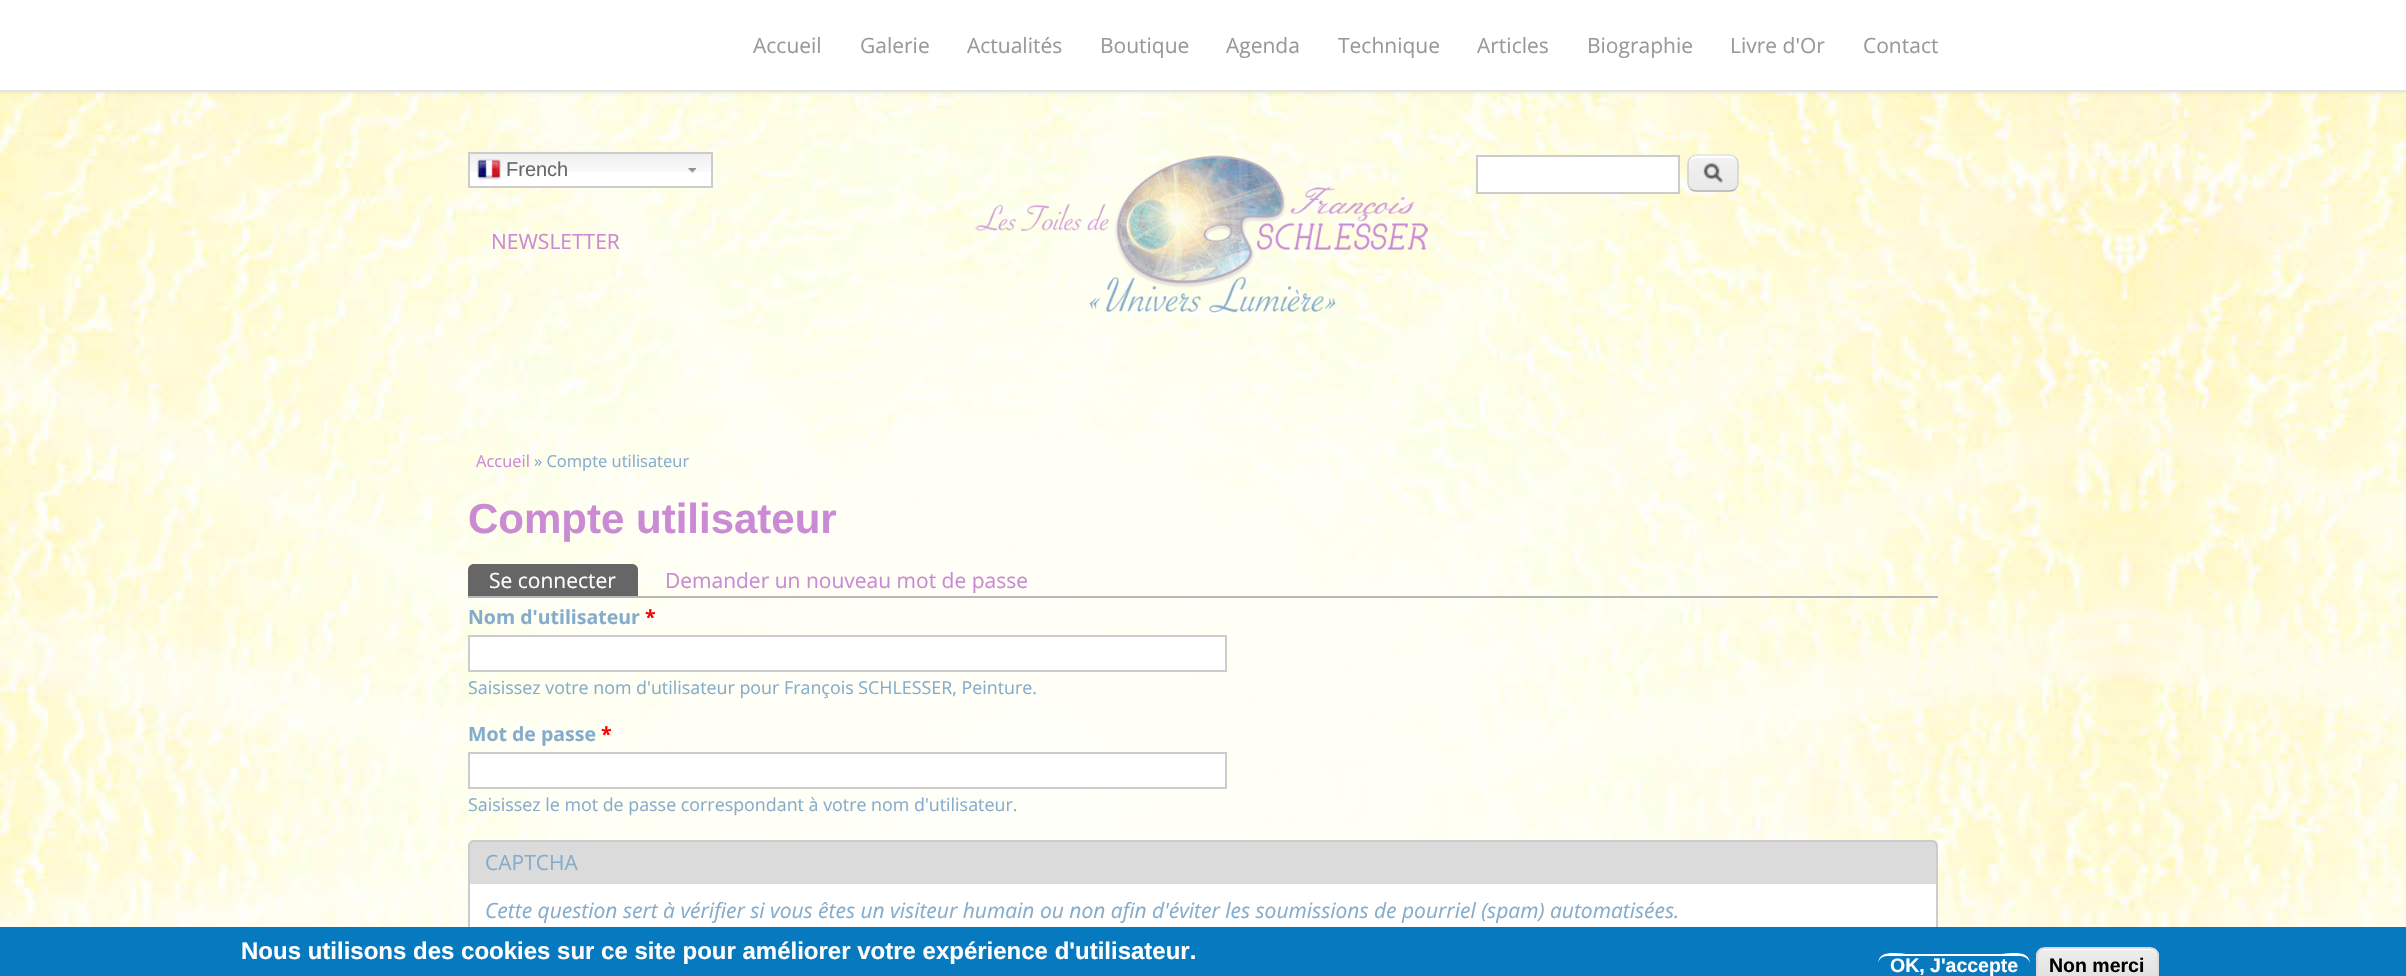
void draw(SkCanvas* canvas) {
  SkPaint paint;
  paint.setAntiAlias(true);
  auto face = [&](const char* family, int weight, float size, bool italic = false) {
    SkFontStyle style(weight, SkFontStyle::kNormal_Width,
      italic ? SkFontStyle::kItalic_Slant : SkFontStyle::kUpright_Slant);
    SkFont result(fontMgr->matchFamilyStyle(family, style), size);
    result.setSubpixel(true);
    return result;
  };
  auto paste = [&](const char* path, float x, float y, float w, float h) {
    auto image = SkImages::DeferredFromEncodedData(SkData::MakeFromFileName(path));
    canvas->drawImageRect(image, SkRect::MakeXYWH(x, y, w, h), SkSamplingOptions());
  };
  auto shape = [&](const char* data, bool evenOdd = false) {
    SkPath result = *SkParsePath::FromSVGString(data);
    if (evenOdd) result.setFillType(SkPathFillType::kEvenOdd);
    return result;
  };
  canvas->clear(0xffffffff);
  paste("img/1.png", 0, 92, 2406, 835);
  paint.setColor(0x1a000000);
  paint.setMaskFilter(SkMaskFilter::MakeBlur(kNormal_SkBlurStyle, 2));
  canvas->drawRect(SkRect::MakeXYWH(0, 0, 2406, 92), paint);
  paint.setMaskFilter(nullptr);
  {
    const struct { float x, y, w, h; SkColor color; } items[] = {
      {0, 0, 2406, 90, 0xffffffff},
      {0, 90, 2406, 2, 0xffe4e4e4},
      {470, 172, 241, 14, 0xffffffff},
    };
    for (auto [x, y, w, h, color] : items) {
      paint.setColor(color);
      canvas->drawRect(SkRect::MakeXYWH(x, y, w, h), paint);
    }
  }
  paste("img/2.png", 468, 151, 245, 21);
  paste("img/3.png", 688, 168, 8, 5);
  paint.setStroke(true);
  paint.setStrokeWidth(2);
  paint.setColor(0xffcccccc);
  canvas->drawRect(SkRect::MakeXYWH(469, 153, 243, 34), paint);
  paste("img/4.png", 477, 159, 24, 21);
  paste("img/5.png", 975, 155, 453, 158);
  paint.setStroke(false);
  paint.setColor(0xffffffff);
  canvas->drawRect(SkRect::MakeXYWH(1477, 156, 202, 37), paint);
  paint.setStroke(true);
  paint.setColor(0xffcccccc);
  canvas->drawRect(SkRect::MakeXYWH(1477, 156, 202, 37), paint);
  paste("img/6.png", 1687, 156, 52, 36);
  paint.setStroke(false);
  paint.setColor(0xffffffff);
  canvas->drawPath(shape("M1696 158H1730C1734 158 1737 161 1737 165C1737 156 1731 156 1724 156H1702C1695 156 1689 156 1689 165C1689 161 1692 158 1696 158Z"), paint);
  paint.setStroke(true);
  paint.setStrokeWidth(1.5f);
  paint.setColor(0xffe4e4e4);
  canvas->drawPath(shape("M1690.5 157.5C1692 156 1694.5 155 1696.5 155H1729.5C1731.5 155 1734 156 1735.5 157.5"), paint);
  paint.setColor(0xffd2d2d2);
  canvas->drawPath(shape("M1735.5 157.5C1737 159 1738 161.5 1738 163.5V183C1738 185 1737 187.5 1735.5 189"), paint);
  paint.setColor(0xffb4b4b4);
  canvas->drawPath(shape("M1735.5 189C1734 190.5 1731.5 191 1729.5 191H1696.5C1694.5 191 1692 190.5 1690.5 189"), paint);
  paint.setColor(0xffd2d2d2);
  canvas->drawPath(shape("M1690.5 189C1689 187.5 1688 185 1688 183V163.5C1688 161.5 1689 159 1690.5 157.5"), paint);
  paint.setStroke(false);
  paint.setColor(0xffb7b7b7);
  canvas->drawRect(SkRect::MakeXYWH(468, 596, 1470, 2), paint);
  paint.setColor(0xff666666);
  canvas->drawPath(shape("M474 564H632C635.5 564 638 566.5 638 570V596H468V570C468 566.5 470.5 564 474 564Z"), paint);
  paint.setColor(0xffffffff);
  canvas->drawRect(SkRect::MakeXYWH(469, 636, 757, 35), paint);
  paint.setStroke(true);
  paint.setStrokeWidth(2);
  paint.setColor(0xffcccccc);
  canvas->drawRect(SkRect::MakeXYWH(469, 636, 757, 35), paint);
  paint.setStroke(false);
  paint.setColor(0xffffffff);
  canvas->drawRect(SkRect::MakeXYWH(469, 753, 757, 35), paint);
  paint.setStroke(true);
  paint.setColor(0xffcccccc);
  canvas->drawRect(SkRect::MakeXYWH(469, 753, 757, 35), paint);
  paint.setStroke(false);
  paint.setColor(0xffffffff);
  canvas->drawRect(SkRect::MakeXYWH(470, 884, 1466, 43), paint);
  paint.setStroke(true);
  paint.setColor(0xffcccccc);
  canvas->drawRect(SkRect::MakeXYWH(469, 858, 1468, 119), paint);
  paint.setStroke(false);
  paint.setColor(0xffdbdbdb);
  canvas->drawPath(shape("M474 840H1932C1935.5 840 1938 842.5 1938 846V884H468V846C468 842.5 470.5 840 474 840Z"), paint);
  paint.setColor(0xffcccccc);
  canvas->drawPath(shape("M474 840H1932C1935 840 1938 843 1938 846V884H468V846C468 843 471 840 474 840ZM474 842H1932C1934 842 1936 844 1936 846V884H470V846C470 844 472 842 474 842Z", true), paint);
  paint.setColor(0xff0779bf);
  canvas->drawRect(SkRect::MakeXYWH(0, 927, 2406, 49), paint);
  paint.setColor(0xffffffff);
  canvas->drawPath(shape("M1887 956H2020C2025 956 2030 960 2030 964C2030 948 2007 954 1999 954H1909C1901 954 1878 948 1878 964C1878 960 1882 956 1887 956Z"), paint);
  canvas->save();
  canvas->clipPath(shape("M2045 947H2150C2155 947 2159 951 2159 956V975C2159 980 2155 984 2150 984H2045C2040 984 2036 980 2036 975V956C2036 951 2040 947 2045 947Z"), true);
  {
    const SkColor colors[] = {0xffededed, 0xffdfdfdf};
    const float stops[] = {0.05f, 1};
    const SkPoint ends[] = {{2097, 948}, {2097, 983}};
    paint.setShader(SkGradientShader::MakeLinear(ends, colors, stops, 2, SkTileMode::kClamp));
    paint.setAlpha(255);
  }
  canvas->drawRect(SkRect::MakeXYWH(2036, 948, 123, 28), paint);
  canvas->restore();
  paint.setShader(nullptr);
  paint.setColor(0xffffffff);
  canvas->drawPath(shape("M2044 950H2150C2154 950 2157 953 2157 957C2157 944 2140 948 2132 948H2062C2054 948 2037 944 2037 957C2037 953 2040 950 2044 950Z"), paint);
  paint.setStroke(true);
  paint.setColor(0xffdcdcdc);
  canvas->drawRoundRect(SkRect::MakeXYWH(2037, 948, 121, 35), 8, 8, paint);
  auto f0 = face("Open Sans", 400, 21);
  paint.setStroke(false);
  paint.setColor(0xff999999);
  {
    const struct { const char* s; float x, y; } items[] = {
      {"Accueil", 753, 53},
      {"Galerie", 860, 53},
      {"Actualités", 967, 53},
      {"Boutique", 1100, 53},
      {"Agenda", 1226, 53},
      {"Technique", 1338, 53},
      {"Articles", 1477, 53},
      {"Biographie", 1587, 53},
      {"Livre d'Or", 1730, 53},
      {"Contact", 1863, 53},
    };
    for (auto [s, x, y] : items) {
      canvas->drawString(s, x, y, f0, paint);
    }
  }
  auto f1 = face("Liberation Sans", 400, 20);
  paint.setColor(0xff666666);
  canvas->drawString("French", 506, 176, f1, paint);
  paint.setColor(0xffca8ad4);
  canvas->drawString("NEWSLETTER", 491, 249, f0, paint);
  auto f2 = face("Open Sans", 400, 16.5f);
  canvas->drawString("Accueil", 476, 467, f2, paint);
  paint.setColor(0xff86accc);
  canvas->drawString("» Compte utilisateur", 534, 467, f2, paint);
  auto f3 = face("Liberation Sans", 700, 42);
  paint.setColor(0xffca8ad4);
  canvas->drawString("Compte utilisateur", 468, 533, f3, paint);
  paint.setColor(0xffffffff);
  canvas->drawString("Se connecter", 489, 588, f0, paint);
  paint.setColor(0xffca8ad4);
  canvas->drawString("Demander un nouveau mot de passe", 665, 588, f0, paint);
  auto f4 = face("Open Sans", 700, 19.5f);
  paint.setColor(0xff86accc);
  canvas->drawString("Nom d'utilisateur", 468, 624, f4, paint);
  paint.setColor(0xffff0000);
  canvas->drawString("*", 645, 624, f4, paint);
  auto f5 = face("Open Sans", 400, 17.85f);
  paint.setColor(0xff86accc);
  canvas->drawString("Saisissez votre nom d'utilisateur pour François SCHLESSER, Peinture.", 468, 694, f5, paint);
  canvas->drawString("Mot de passe", 468, 741, f4, paint);
  paint.setColor(0xffff0000);
  canvas->drawString("*", 601, 741, f4, paint);
  paint.setColor(0xff86accc);
  canvas->drawString("Saisissez le mot de passe correspondant à votre nom d'utilisateur.", 468, 811, f5, paint);
  canvas->drawString("CAPTCHA", 485, 870, f0, paint);
  auto f6 = face("Open Sans", 400, 21, true);
  canvas->drawString("Cette question sert à vérifier si vous êtes un visiteur humain ou non afin d'éviter les soumissions de pourriel (spam) automatisées.", 485, 918, f6, paint);
  auto f7 = face("Liberation Sans", 700, 24);
  paint.setColor(0xffffffff);
  canvas->drawString("Nous utilisons des cookies sur ce site pour améliorer votre expérience d'utilisateur.", 241, 959, f7, paint);
  auto f8 = face("Liberation Sans", 700, 19.5f);
  canvas->drawString("OK, J'accepte", 1890, 972, f8, paint);
  paint.setColor(0xff000000);
  canvas->drawString("Non merci", 2049, 972, f8, paint);
}
